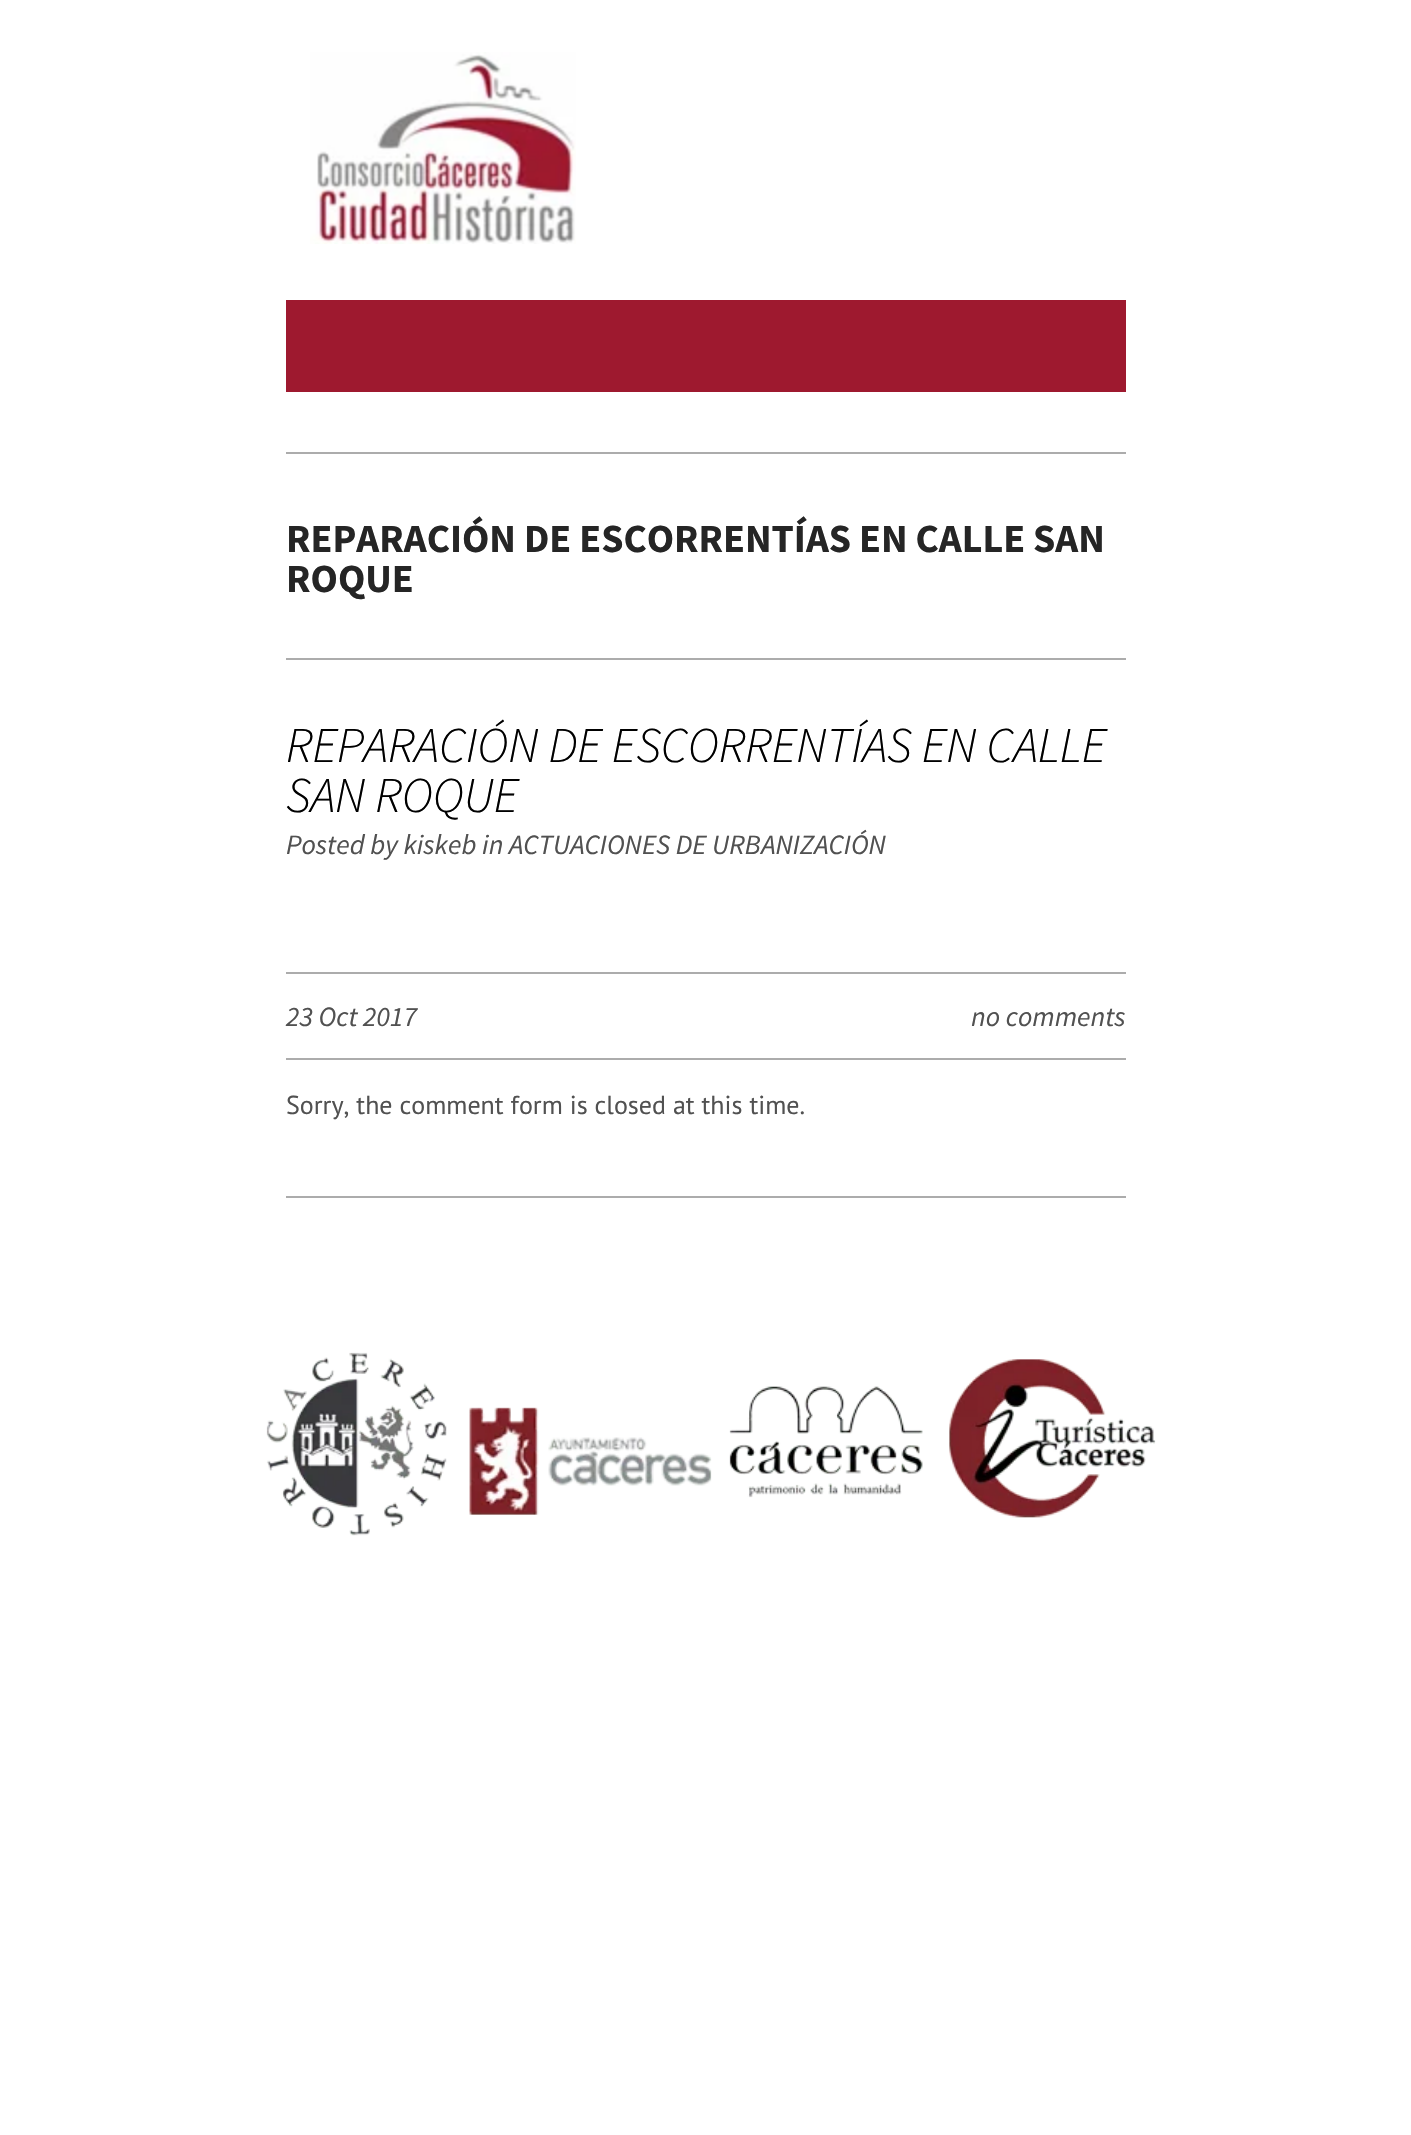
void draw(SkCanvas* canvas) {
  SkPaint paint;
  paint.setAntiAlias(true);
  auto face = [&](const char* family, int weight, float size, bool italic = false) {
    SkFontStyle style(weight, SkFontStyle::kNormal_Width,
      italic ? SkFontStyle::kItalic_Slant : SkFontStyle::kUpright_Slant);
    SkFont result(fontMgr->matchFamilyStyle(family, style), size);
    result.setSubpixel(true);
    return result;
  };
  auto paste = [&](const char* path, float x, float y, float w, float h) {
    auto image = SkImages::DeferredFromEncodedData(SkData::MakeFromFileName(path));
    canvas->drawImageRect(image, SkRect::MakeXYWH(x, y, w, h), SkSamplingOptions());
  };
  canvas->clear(0xffffffff);
  paint.setColor(0xffacacac);
  canvas->drawRect(SkRect::MakeXYWH(286, 452, 840, 2), paint);
  paste("img/1.png", 310, 52, 266, 192);
  {
    const struct { float x, y, w, h; SkColor color; } items[] = {
      {286, 300, 840, 92, 0xff9e192f},
      {286, 658, 840, 2, 0xffacacac},
      {286, 972, 840, 2, 0xffacacac},
      {286, 1058, 840, 2, 0xffacacac},
      {286, 1196, 840, 2, 0xffacacac},
    };
    for (auto [x, y, w, h, color] : items) {
      paint.setColor(color);
      canvas->drawRect(SkRect::MakeXYWH(x, y, w, h), paint);
    }
  }
  paste("img/2.png", 266, 1352, 181, 184);
  paste("img/3.png", 469, 1407, 243, 108);
  paste("img/4.png", 729, 1386, 194, 112);
  paste("img/5.png", 949, 1359, 207, 159);
  auto f0 = face("Source Sans Pro", 700, 40);
  paint.setColor(0xff252525);
  canvas->drawString("REPARACIÓN DE ESCORRENTÍAS EN CALLE SAN", 286, 552, f0, paint);
  canvas->drawString("ROQUE", 286, 592, f0, paint);
  auto f1 = face("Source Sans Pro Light", 300, 50, true);
  paint.setColor(0xff000000);
  canvas->drawString("REPARACIÓN DE ESCORRENTÍAS EN CALLE", 286, 762, f1, paint);
  canvas->drawString("SAN ROQUE", 286, 812, f1, paint);
  auto f2 = face("Source Sans Pro", 400, 28, true);
  paint.setColor(0xff515151);
  {
    const struct { const char* s; float x, y; } items[] = {
      {"Posted by kiskeb in ACTUACIONES DE URBANIZACIÓN", 286, 854},
      {"23 Oct 2017", 286, 1026},
      {"no comments", 971, 1026},
    };
    for (auto [s, x, y] : items) {
      canvas->drawString(s, x, y, f2, paint);
    }
  }
  auto f3 = face("PT Sans", 400, 26);
  canvas->drawString("Sorry, the comment form is closed at this time.", 286, 1114, f3, paint);
}
